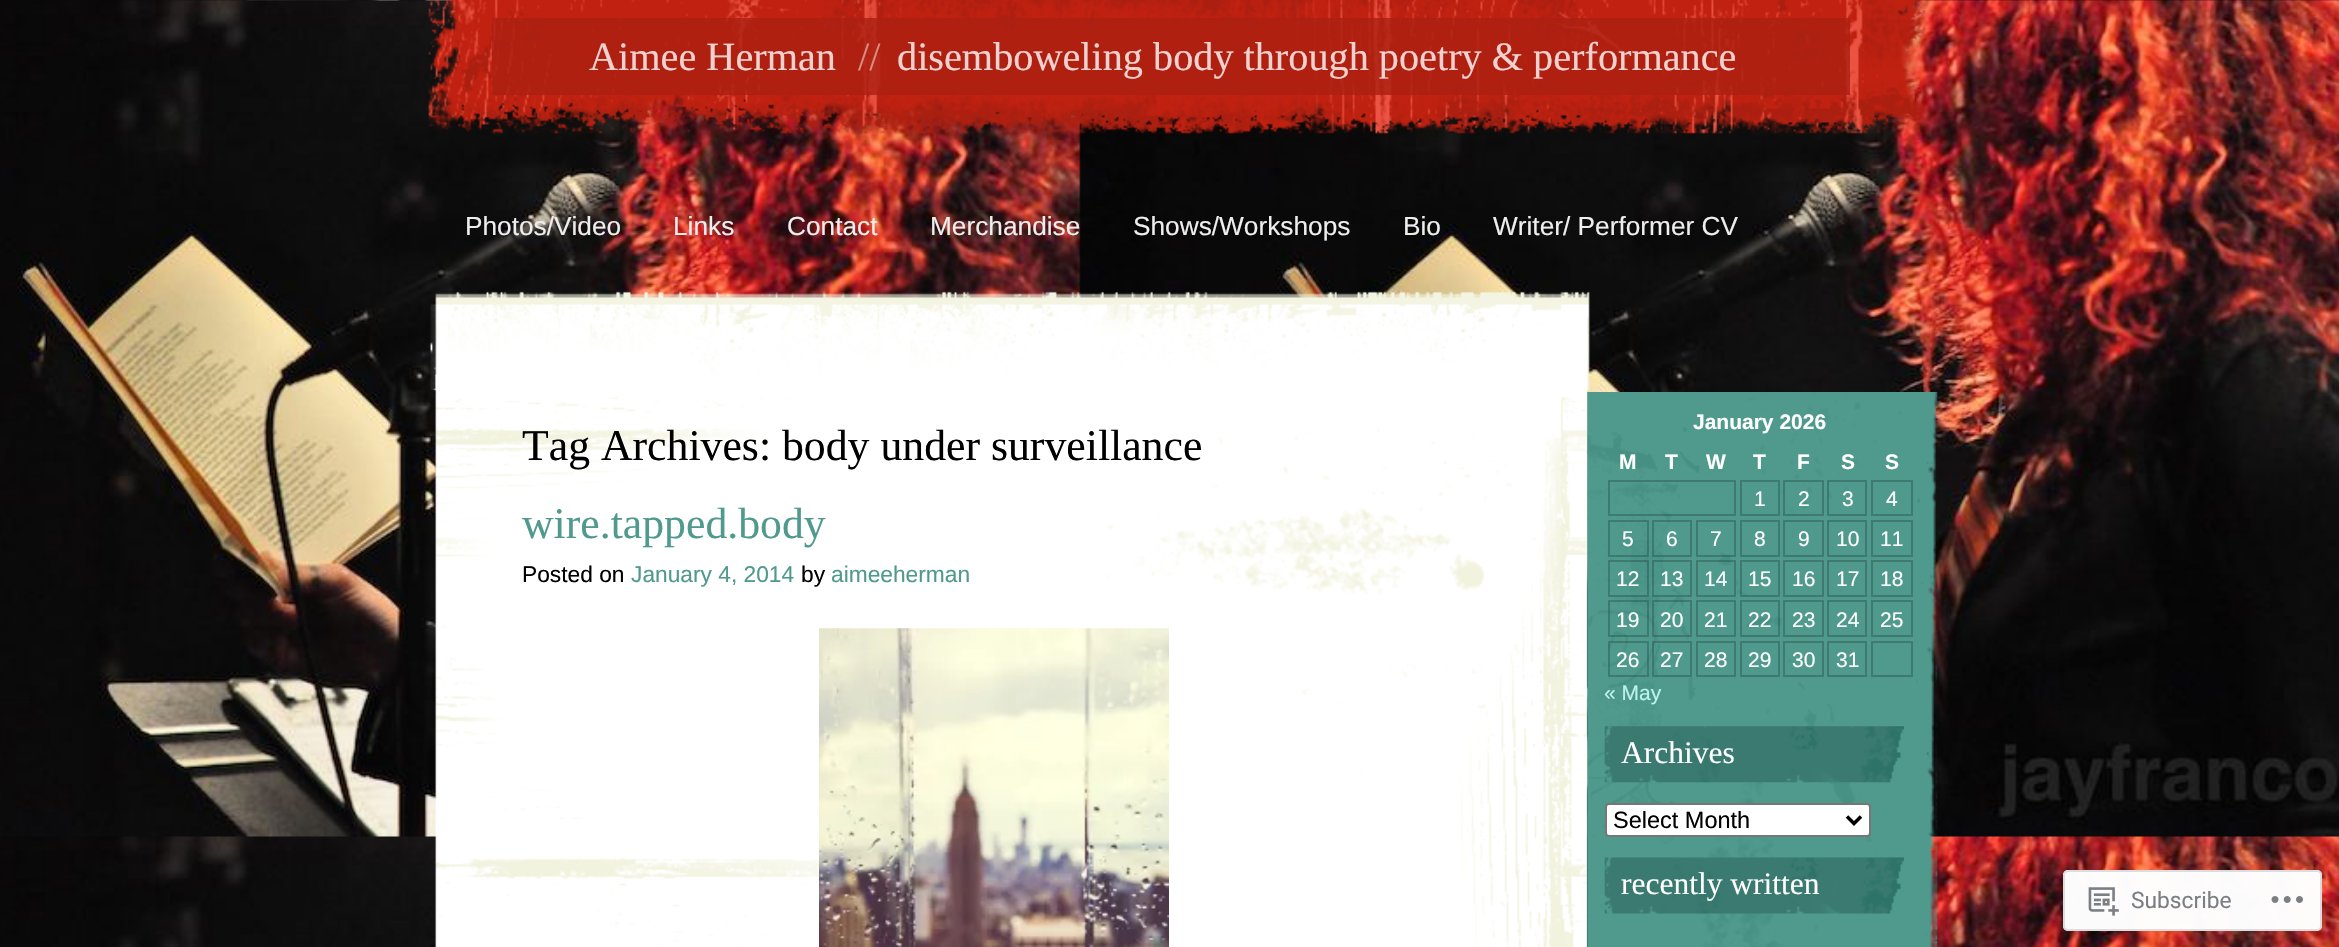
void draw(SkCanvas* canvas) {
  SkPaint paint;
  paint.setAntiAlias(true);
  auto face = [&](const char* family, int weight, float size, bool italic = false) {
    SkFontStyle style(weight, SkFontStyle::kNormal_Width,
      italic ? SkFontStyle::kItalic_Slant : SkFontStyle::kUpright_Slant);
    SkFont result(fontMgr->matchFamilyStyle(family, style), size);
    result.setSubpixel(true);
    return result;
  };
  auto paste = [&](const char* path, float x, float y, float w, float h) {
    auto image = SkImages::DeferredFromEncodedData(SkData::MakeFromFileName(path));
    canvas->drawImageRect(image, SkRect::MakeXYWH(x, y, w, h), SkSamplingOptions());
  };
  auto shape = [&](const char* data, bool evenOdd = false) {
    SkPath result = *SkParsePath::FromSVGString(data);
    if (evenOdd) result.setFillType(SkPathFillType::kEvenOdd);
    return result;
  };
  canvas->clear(0xffffffff);
  paste("img/1.png", 0, 0, 2339, 947);
  paste("img/2.png", 428, 0, 1502, 141);
  paint.setColor(0xccaa1f10);
  canvas->drawRect(SkRect::MakeXYWH(492, 18, 1358, 77), paint);
  paste("img/3.png", 430, 291, 1160, 100);
  paste("img/4.png", 435, 374, 1153, 573);
  paste("img/5.png", 819, 628, 350, 319);
  paste("img/6.png", 1587, 392, 351, 555);
  paint.setStroke(true);
  paint.setStrokeWidth(2);
  paint.setColor(0x33000000);
  canvas->drawRect(SkRect::MakeXYWH(1609, 481, 126, 34), paint);
  paint.setColor(0xff3f7a71);
  canvas->drawRect(SkRect::MakeXYWH(1741, 481, 38, 34), paint);
  paint.setColor(0x33000000);
  canvas->drawRect(SkRect::MakeXYWH(1784, 481, 39, 34), paint);
  canvas->drawRect(SkRect::MakeXYWH(1828, 481, 38, 34), paint);
  paint.setColor(0xff3f7a71);
  canvas->drawRect(SkRect::MakeXYWH(1872, 481, 40, 34), paint);
  paint.setColor(0x33000000);
  canvas->drawRect(SkRect::MakeXYWH(1609, 521, 39, 35), paint);
  canvas->drawRect(SkRect::MakeXYWH(1653, 521, 38, 35), paint);
  canvas->drawRect(SkRect::MakeXYWH(1697, 521, 38, 35), paint);
  paint.setColor(0xff3f7a71);
  canvas->drawRect(SkRect::MakeXYWH(1741, 521, 38, 35), paint);
  canvas->drawRect(SkRect::MakeXYWH(1784, 521, 39, 35), paint);
  canvas->drawRect(SkRect::MakeXYWH(1828, 521, 38, 35), paint);
  canvas->drawRect(SkRect::MakeXYWH(1872, 521, 40, 35), paint);
  paint.setColor(0x33000000);
  canvas->drawRect(SkRect::MakeXYWH(1609, 561, 39, 35), paint);
  canvas->drawRect(SkRect::MakeXYWH(1653, 561, 38, 35), paint);
  canvas->drawRect(SkRect::MakeXYWH(1697, 561, 38, 35), paint);
  canvas->drawRect(SkRect::MakeXYWH(1741, 561, 38, 35), paint);
  paint.setColor(0xff3f7a71);
  canvas->drawRect(SkRect::MakeXYWH(1784, 561, 39, 35), paint);
  canvas->drawRect(SkRect::MakeXYWH(1828, 561, 38, 35), paint);
  canvas->drawRect(SkRect::MakeXYWH(1872, 561, 40, 35), paint);
  paint.setColor(0x33000000);
  canvas->drawRect(SkRect::MakeXYWH(1609, 601, 39, 35), paint);
  canvas->drawRect(SkRect::MakeXYWH(1653, 601, 38, 35), paint);
  paint.setColor(0xff3f7a71);
  canvas->drawRect(SkRect::MakeXYWH(1697, 601, 38, 35), paint);
  paint.setColor(0x33000000);
  canvas->drawRect(SkRect::MakeXYWH(1741, 601, 38, 35), paint);
  paint.setColor(0xff3f7a71);
  canvas->drawRect(SkRect::MakeXYWH(1784, 601, 39, 35), paint);
  canvas->drawRect(SkRect::MakeXYWH(1828, 601, 38, 35), paint);
  canvas->drawRect(SkRect::MakeXYWH(1872, 601, 40, 35), paint);
  paint.setColor(0x33000000);
  canvas->drawRect(SkRect::MakeXYWH(1609, 642, 39, 34), paint);
  canvas->drawRect(SkRect::MakeXYWH(1653, 642, 38, 34), paint);
  paint.setColor(0xff3f7a71);
  canvas->drawRect(SkRect::MakeXYWH(1697, 642, 38, 34), paint);
  canvas->drawRect(SkRect::MakeXYWH(1741, 642, 38, 34), paint);
  canvas->drawRect(SkRect::MakeXYWH(1784, 642, 39, 34), paint);
  canvas->drawRect(SkRect::MakeXYWH(1828, 642, 38, 34), paint);
  canvas->drawRect(SkRect::MakeXYWH(1872, 642, 40, 34), paint);
  paste("img/7.png", 1604, 726, 300, 57);
  paint.setStroke(false);
  paint.setColor(0xffffffff);
  canvas->drawRoundRect(SkRect::MakeXYWH(1606, 804, 264, 32), 3, 3, paint);
  paint.setStroke(true);
  paint.setColor(0xff767676);
  canvas->drawRoundRect(SkRect::MakeXYWH(1606, 804, 264, 32), 3, 3, paint);
  paint.setStrokeWidth(3.5f);
  paint.setColor(0xff000000);
  canvas->drawPath(shape("M1847 816.5L1854 823.5L1861 816.5"), paint);
  paste("img/8.png", 1604, 857, 300, 57);
  paint.setStroke(false);
  paint.setColor(0xfaffffff);
  canvas->drawRoundRect(SkRect::MakeXYWH(2063, 870, 259, 61), 5, 5, paint);
  paint.setStroke(true);
  paint.setStrokeWidth(2);
  paint.setColor(0xfadcdcde);
  canvas->drawRoundRect(SkRect::MakeXYWH(2064, 871, 257, 59), 4, 4, paint);
  paste("img/9.png", 2088, 887, 31, 29);
  paste("img/10.png", 2271, 896, 32, 7);
  auto f0 = face("Liberation Serif", 400, 40.25f);
  paint.setStroke(false);
  paint.setColor(0xffefd2cf);
  canvas->drawString("Aimee Herman", 589, 70, f0, paint);
  paint.setColor(0xffd78d85);
  canvas->drawString("//", 858, 70, f0, paint);
  paint.setColor(0xffefd2cf);
  canvas->drawString("disemboweling body through poetry & performance", 897, 70, f0, paint);
  auto f1 = face("Liberation Sans", 400, 26.25f);
  paint.setColor(0xffeeeeee);
  {
    const struct { const char* s; float x, y; } items[] = {
      {"Photos/Video", 465, 235},
      {"Links", 673, 235},
      {"Contact", 787, 235},
      {"Merchandise", 930, 235},
      {"Shows/Workshops", 1133, 235},
      {"Bio", 1403, 235},
      {"Writer/ Performer CV", 1493, 235},
    };
    for (auto [s, x, y] : items) {
      canvas->drawString(s, x, y, f1, paint);
    }
  }
  auto f2 = face("Liberation Serif", 400, 43.75f);
  paint.setColor(0xff000000);
  canvas->drawString("Tag Archives: body under surveillance", 522, 460, f2, paint);
  paint.setColor(0xff4f998d);
  canvas->drawString("wire.tapped.body", 522, 538, f2, paint);
  auto f3 = face("Liberation Sans", 400, 22.75f);
  paint.setColor(0xff000000);
  canvas->drawString("Posted on", 522, 582, f3, paint);
  paint.setColor(0xff4f998d);
  canvas->drawString("January 4, 2014", 631, 582, f3, paint);
  paint.setColor(0xff000000);
  canvas->drawString("by", 801, 582, f3, paint);
  paint.setColor(0xff4f998d);
  canvas->drawString("aimeeherman", 831, 582, f3, paint);
  auto f4 = face("Liberation Sans", 700, 21);
  paint.setColor(0xffffffff);
  {
    const struct { const char* s; float x, y; } items[] = {
      {"January 2026", 1693, 429},
      {"M", 1619, 469},
      {"T", 1665, 469},
      {"W", 1706, 469},
      {"T", 1753, 469},
      {"F", 1797, 469},
      {"S", 1841, 469},
      {"S", 1885, 469},
    };
    for (auto [s, x, y] : items) {
      canvas->drawString(s, x, y, f4, paint);
    }
  }
  auto f5 = face("Liberation Sans", 400, 21);
  {
    const struct { const char* s; float x, y; } items[] = {
      {"1", 1754, 506},
      {"2", 1798, 506},
      {"3", 1842, 506},
      {"4", 1886, 506},
      {"5", 1622, 546},
      {"6", 1666, 546},
      {"7", 1710, 546},
      {"8", 1754, 546},
      {"9", 1798, 546},
      {"10", 1836, 546},
      {"11", 1880, 546},
      {"12", 1616, 586},
      {"13", 1660, 586},
      {"14", 1704, 586},
      {"15", 1748, 586},
      {"16", 1792, 586},
      {"17", 1836, 586},
      {"18", 1880, 586},
      {"19", 1616, 627},
      {"20", 1660, 627},
      {"21", 1704, 627},
      {"22", 1748, 627},
      {"23", 1792, 627},
      {"24", 1836, 627},
      {"25", 1880, 627},
      {"26", 1616, 667},
      {"27", 1660, 667},
      {"28", 1704, 667},
      {"29", 1748, 667},
      {"30", 1792, 667},
      {"31", 1836, 667},
    };
    for (auto [s, x, y] : items) {
      canvas->drawString(s, x, y, f5, paint);
    }
  }
  paint.setColor(0xffbcf3ea);
  canvas->drawString("« May", 1604, 700, f5, paint);
  auto f6 = face("Liberation Serif", 400, 31.5f);
  paint.setColor(0xffffffff);
  canvas->drawString("Archives", 1621, 763, f6, paint);
  auto f7 = face("Liberation Sans", 400, 23.5f);
  paint.setColor(0xff000000);
  canvas->drawString("Select Month", 1613, 828, f7, paint);
  paint.setColor(0xffffffff);
  canvas->drawString("recently written", 1621, 894, f6, paint);
  auto f8 = face("Roboto", 400, 22.75f);
  paint.setColor(0xff7b7f84);
  canvas->drawString("Subscribe", 2131, 908, f8, paint);
}
